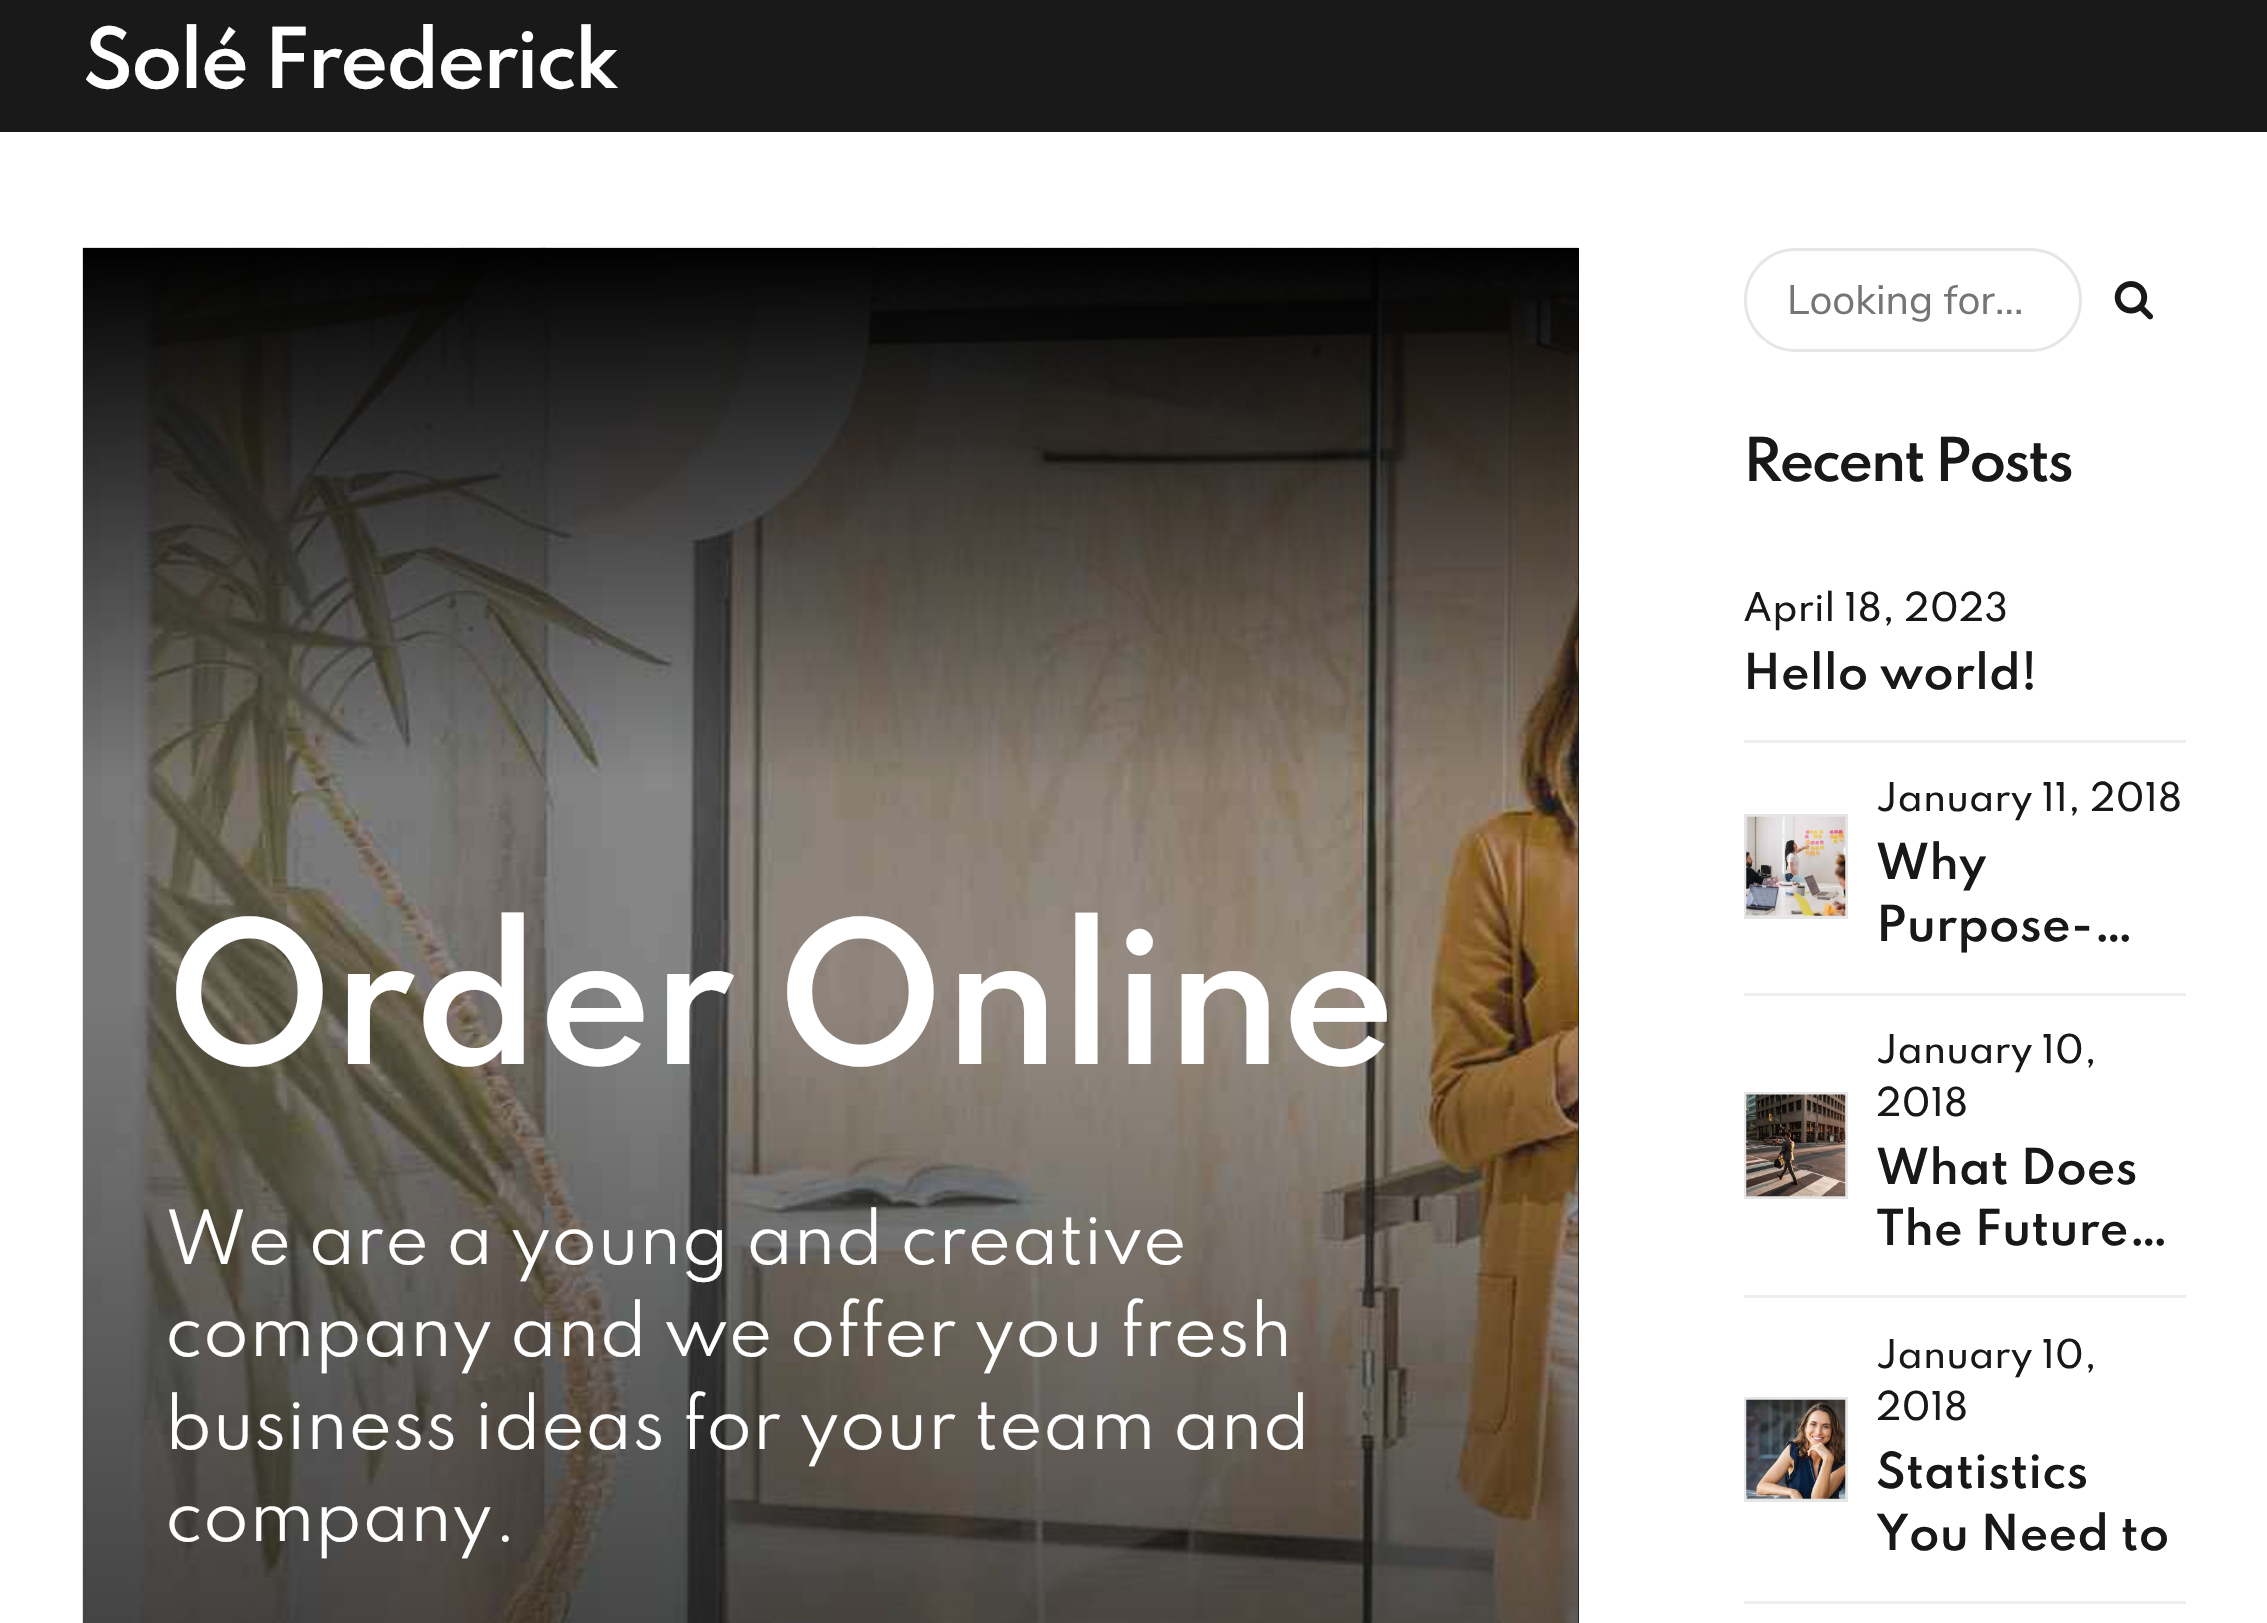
void draw(SkCanvas* canvas) {
  SkPaint paint;
  paint.setAntiAlias(true);
  auto face = [&](const char* family, int weight, float size, bool italic = false) {
    SkFontStyle style(weight, SkFontStyle::kNormal_Width,
      italic ? SkFontStyle::kItalic_Slant : SkFontStyle::kUpright_Slant);
    SkFont result(fontMgr->matchFamilyStyle(family, style), size);
    result.setSubpixel(true);
    return result;
  };
  auto writeSpaced = [&](const char* s, float x, float y, const SkFont& font, const SkPaint& ink, float letter, float word) {
    std::vector<SkGlyphID> glyphs(font.countText(s, strlen(s), SkTextEncoding::kUTF8));
    std::vector<float> xs(glyphs.size());
    font.textToGlyphs(s, strlen(s), SkTextEncoding::kUTF8, glyphs);
    font.getXPos(glyphs, xs, x);
    float extra = 0;
    for (size_t i = 0; i < glyphs.size(); i++) {
      xs[i] += extra;
      extra += letter + word * (glyphs[i] == font.unicharToGlyph(' '));
    }
    canvas->drawTextBlob(SkTextBlob::MakeFromPosHGlyphs(glyphs, xs, y, font), 0, 0, ink);
  };
  auto paste = [&](const char* path, float x, float y, float w, float h) {
    auto image = SkImages::DeferredFromEncodedData(SkData::MakeFromFileName(path));
    canvas->drawImageRect(image, SkRect::MakeXYWH(x, y, w, h), SkSamplingOptions());
  };
  canvas->clear(0xffffffff);
  paint.setColor(0xff191919);
  canvas->drawRect(SkRect::MakeXYWH(0, 0, 2267, 132), paint);
  canvas->drawRect(SkRect::MakeXYWH(1578, 250, 1, 1373), paint);
  paste("img/1.png", 82, 247, 1497, 1376);
  {
    const SkColor colors[] = {0xff000000, 0x00000000, 0x00000000, 0xff000000};
    const float stops[] = {0, 0.25f, 0.35f, 1};
    const SkPoint ends[] = {{830, 247}, {831, 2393}};
    paint.setShader(SkGradientShader::MakeLinear(ends, colors, stops, 4, SkTileMode::kClamp));
    paint.setAlpha(255);
  }
  canvas->drawRect(SkRect::MakeXYWH(83, 248, 1496, 1375), paint);
  paint.setStroke(true);
  paint.setStrokeWidth(3);
  paint.setShader(nullptr);
  paint.setColor(0xffe6e6e6);
  canvas->drawRoundRect(SkRect::MakeXYWH(1745.5f, 249.5f, 335, 101), 50.5f, 50.5f, paint);
  paste("img/2.png", 2114, 281, 39, 39);
  paint.setStroke(false);
  paint.setColor(0xffededed);
  canvas->drawRect(SkRect::MakeXYWH(1744, 740, 442, 3), paint);
  canvas->drawRect(SkRect::MakeXYWH(1744, 993, 442, 3), paint);
  paint.setStroke(true);
  paint.setColor(0xffe6e6e6);
  canvas->drawRect(SkRect::MakeXYWH(1745.5f, 815.5f, 101, 102), paint);
  paste("img/3.png", 1746, 816, 100, 100);
  paint.setStroke(false);
  paint.setColor(0xffededed);
  canvas->drawRect(SkRect::MakeXYWH(1744, 1295, 442, 3), paint);
  paint.setStroke(true);
  paint.setColor(0xffe6e6e6);
  canvas->drawRect(SkRect::MakeXYWH(1745.5f, 1093.5f, 101, 104), paint);
  paste("img/4.png", 1746, 1094, 100, 103);
  paint.setStroke(false);
  paint.setColor(0xffededed);
  canvas->drawRect(SkRect::MakeXYWH(1744, 1601, 442, 3), paint);
  paint.setStroke(true);
  paint.setColor(0xffe6e6e6);
  canvas->drawRect(SkRect::MakeXYWH(1745.5f, 1398.5f, 101, 102), paint);
  paste("img/5.png", 1746, 1399, 100, 100);
  auto f0 = face("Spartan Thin", 600, 74.25f);
  paint.setStroke(false);
  paint.setColor(0xffffffff);
  writeSpaced("Solé Frederick", 83, 88, f0, paint, -2.75f, 0);
  auto f1 = face("Spartan Thin", 600, 176);
  writeSpaced("Order Online", 165, 1064, f1, paint, -2.75f, 0);
  auto f2 = face("Spartan Thin", 400, 66);
  {
    const struct { const char* s; float x, y; } items[] = {
      {"We are a young and creative", 165, 1264},
      {"company and we offer you fresh", 165, 1356},
      {"business ideas for your team and", 165, 1449},
      {"company.", 165, 1541},
    };
    for (auto [s, x, y] : items) {
      canvas->drawString(s, x, y, f2, paint);
    }
  }
  auto f3 = face("Nunito Sans", 400, 41.25f);
  paint.setColor(0xff757575);
  canvas->drawString("Looking for...", 1787, 314, f3, paint);
  auto f4 = face("Spartan Thin", 600, 53.5f);
  paint.setColor(0xff181818);
  writeSpaced("Recent Posts", 1743, 481, f4, paint, -2.75f, 0);
  auto f5 = face("Spartan Thin", 500, 35.25f);
  canvas->drawString("April 18, 2023", 1743, 621, f5, paint);
  auto f6 = face("Spartan Thin", 600, 44);
  canvas->drawString("Hello world!", 1743, 689, f6, paint);
  canvas->drawString("January 11, 2018", 1876, 811, f5, paint);
  canvas->drawString("Why", 1876, 879, f6, paint);
  canvas->drawString("Purpose-…", 1876, 941, f6, paint);
  canvas->drawString("January 10,", 1876, 1063, f5, paint);
  canvas->drawString("2018", 1876, 1116, f5, paint);
  canvas->drawString("What Does", 1876, 1184, f6, paint);
  canvas->drawString("The Future…", 1876, 1245, f6, paint);
  canvas->drawString("January 10,", 1876, 1368, f5, paint);
  canvas->drawString("2018", 1876, 1420, f5, paint);
  canvas->drawString("Statistics", 1876, 1488, f6, paint);
  canvas->drawString("You Need to", 1876, 1550, f6, paint);
}
